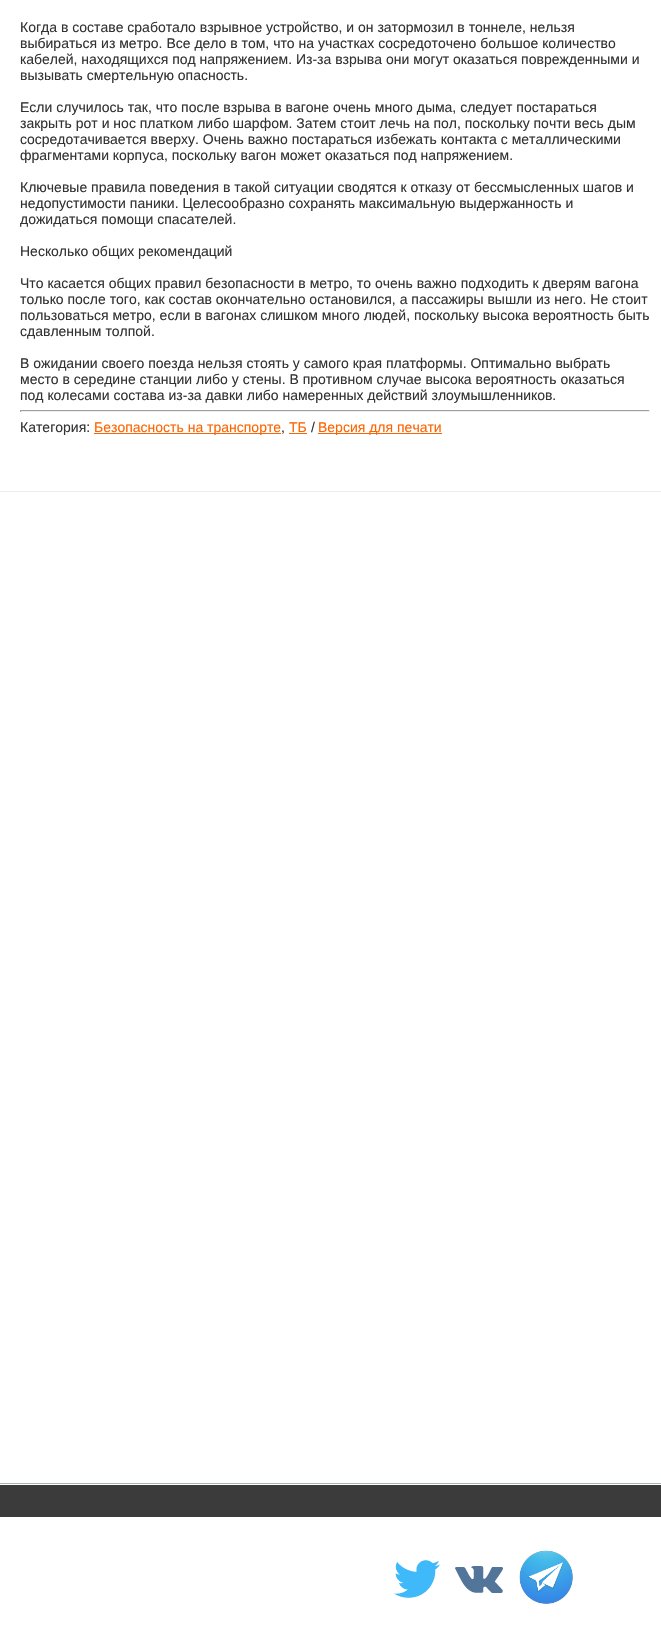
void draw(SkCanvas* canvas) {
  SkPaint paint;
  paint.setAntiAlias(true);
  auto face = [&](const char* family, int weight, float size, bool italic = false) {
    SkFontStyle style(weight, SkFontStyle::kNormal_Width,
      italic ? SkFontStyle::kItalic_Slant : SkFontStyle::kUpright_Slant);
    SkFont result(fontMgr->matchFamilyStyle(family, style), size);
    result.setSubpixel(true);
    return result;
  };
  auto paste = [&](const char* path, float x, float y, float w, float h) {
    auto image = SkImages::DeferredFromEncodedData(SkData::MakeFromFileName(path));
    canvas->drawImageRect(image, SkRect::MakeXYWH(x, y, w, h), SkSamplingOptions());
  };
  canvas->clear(0xffffffff);
  {
    const struct { float x, y, w, h; SkColor color; } items[] = {
      {0, 1483, 661, 1, 0xffabb6b6},
      {0, 491, 661, 1, 0xffededed},
      {20, 410, 630, 1, 0xff9f9f9f},
      {649, 410, 1, 2, 0xffeeeeee},
      {20, 411, 630, 1, 0xffeeeeee},
      {20, 410, 1, 2, 0xff9f9f9f},
      {94, 433, 187, 1, 0xfffc6400},
      {289, 433, 18, 1, 0xfffc6400},
      {318, 433, 124, 1, 0xfffc6400},
      {0, 1485, 661, 32, 0xff3b3b3b},
    };
    for (auto [x, y, w, h, color] : items) {
      paint.setColor(color);
      canvas->drawRect(SkRect::MakeXYWH(x, y, w, h), paint);
    }
  }
  paste("img/1.png", 394, 1560, 46, 38);
  paste("img/2.png", 455, 1566, 48, 27);
  paste("img/3.png", 519, 1550, 54, 54);
  auto f0 = face("Liberation Sans", 400, 14);
  paint.setColor(0xff333333);
  {
    const struct { const char* s; float x, y; } items[] = {
      {"Когда в составе сработало взрывное устройство, и он затормозил в тоннеле, нельзя", 20, 32},
      {"выбираться из метро. Все дело в том, что на участках сосредоточено большое количество", 20, 48},
      {"кабелей, находящихся под напряжением. Из-за взрыва они могут оказаться поврежденными и", 20, 64},
      {"вызывать смертельную опасность.", 20, 80},
      {"Если случилось так, что после взрыва в вагоне очень много дыма, следует постараться", 20, 112},
      {"закрыть рот и нос платком либо шарфом. Затем стоит лечь на пол, поскольку почти весь дым", 20, 128},
      {"сосредотачивается вверху. Очень важно постараться избежать контакта с металлическими", 20, 144},
      {"фрагментами корпуса, поскольку вагон может оказаться под напряжением.", 20, 160},
      {"Ключевые правила поведения в такой ситуации сводятся к отказу от бессмысленных шагов и", 20, 192},
      {"недопустимости паники. Целесообразно сохранять максимальную выдержанность и", 20, 208},
      {"дожидаться помощи спасателей.", 20, 224},
      {"Несколько общих рекомендаций", 20, 256},
      {"Что касается общих правил безопасности в метро, то очень важно подходить к дверям вагона", 20, 288},
      {"только после того, как состав окончательно остановился, а пассажиры вышли из него. Не стоит", 20, 304},
      {"пользоваться метро, если в вагонах слишком много людей, поскольку высока вероятность быть", 20, 320},
      {"сдавленным толпой.", 20, 336},
      {"В ожидании своего поезда нельзя стоять у самого края платформы. Оптимально выбрать", 20, 368},
      {"место в середине станции либо у стены. В противном случае высока вероятность оказаться", 20, 384},
      {"под колесами состава из-за давки либо намеренных действий злоумышленников.", 20, 400},
      {"Категория:", 20, 432},
    };
    for (auto [s, x, y] : items) {
      canvas->drawString(s, x, y, f0, paint);
    }
  }
  paint.setColor(0xfffc6400);
  canvas->drawString("Безопасность на транспорте", 94, 432, f0, paint);
  paint.setColor(0xff333333);
  canvas->drawString(",", 281, 432, f0, paint);
  paint.setColor(0xfffc6400);
  canvas->drawString("ТБ", 289, 432, f0, paint);
  paint.setColor(0xff333333);
  canvas->drawString("/", 311, 432, f0, paint);
  paint.setColor(0xfffc6400);
  canvas->drawString("Версия для печати", 318, 432, f0, paint);
}
